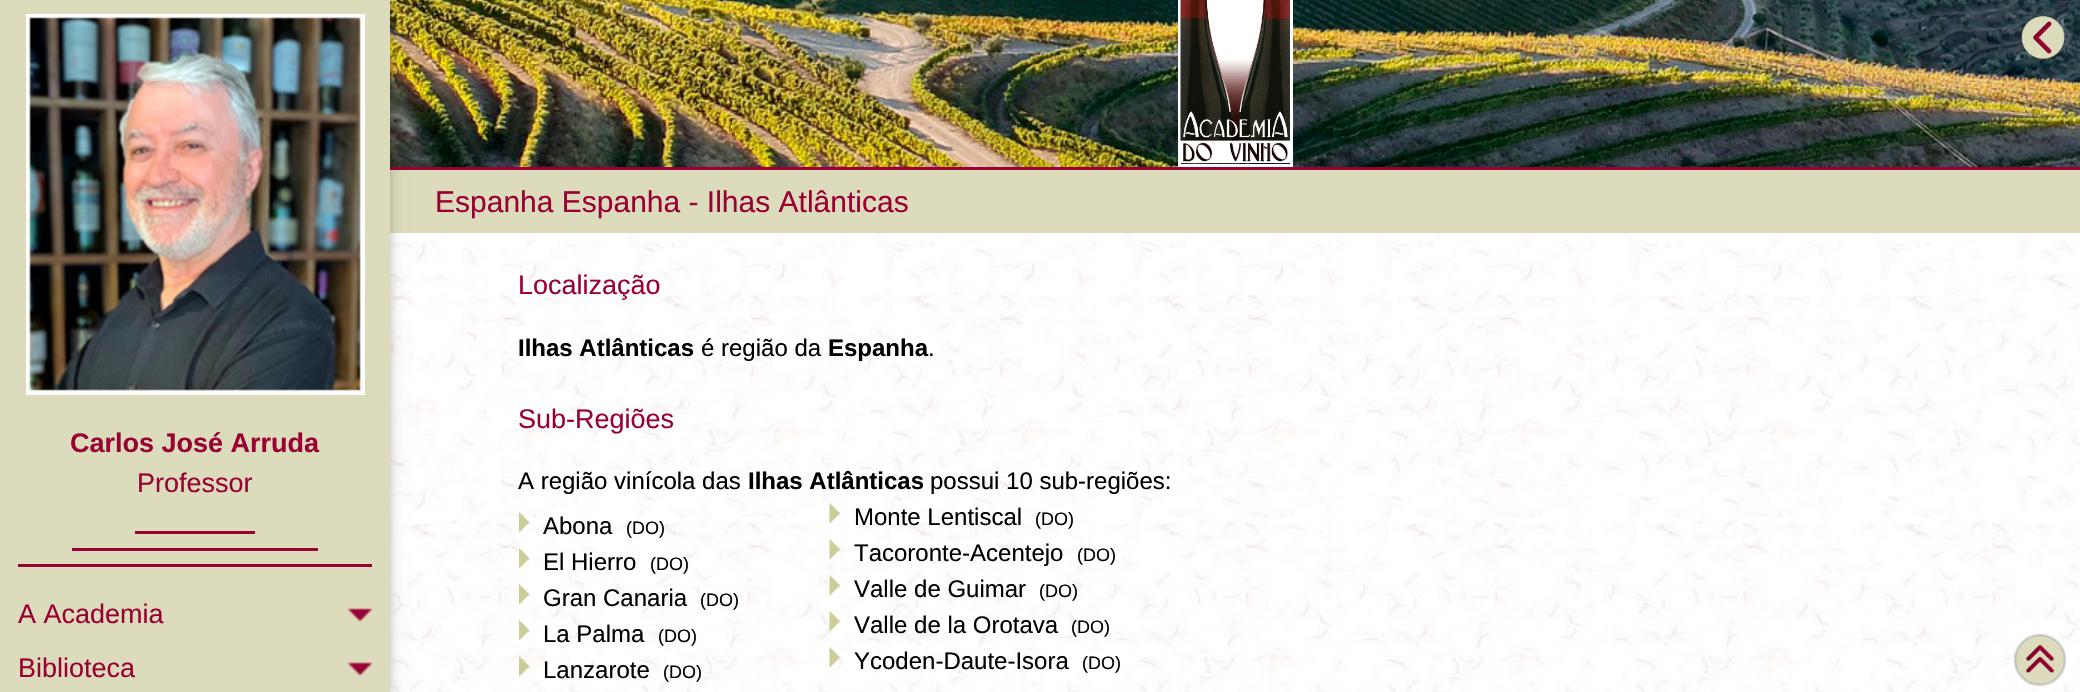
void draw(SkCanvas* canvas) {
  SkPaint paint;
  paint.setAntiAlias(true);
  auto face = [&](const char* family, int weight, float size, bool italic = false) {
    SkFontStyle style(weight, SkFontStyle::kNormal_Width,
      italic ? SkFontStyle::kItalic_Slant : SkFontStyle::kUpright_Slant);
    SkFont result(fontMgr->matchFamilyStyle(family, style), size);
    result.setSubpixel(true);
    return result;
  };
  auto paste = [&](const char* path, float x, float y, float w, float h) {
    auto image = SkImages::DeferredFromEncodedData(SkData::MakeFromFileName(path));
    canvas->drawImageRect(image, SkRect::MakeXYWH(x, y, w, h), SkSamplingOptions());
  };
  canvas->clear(0xffffffff);
  paste("img/1.png", 390, 518, 1690, 174);
  paste("img/4.png", 390, 233, 1690, 282);
  paste("img/5.png", 390, 0, 1690, 167);
  paint.setColor(0xff990033);
  canvas->drawRect(SkRect::MakeXYWH(390, 167, 1690, 3), paint);
  paint.setColor(0xffdcdcbc);
  canvas->drawRect(SkRect::MakeXYWH(390, 170, 1690, 63), paint);
  paint.setColor(0x1f000000);
  paint.setMaskFilter(SkMaskFilter::MakeBlur(kNormal_SkBlurStyle, 7.5f));
  canvas->drawRect(SkRect::MakeXYWH(0, 3, 390, 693), paint);
  paint.setMaskFilter(nullptr);
  paint.setColor(0x29000000);
  paint.setMaskFilter(SkMaskFilter::MakeBlur(kNormal_SkBlurStyle, 4));
  canvas->drawRect(SkRect::MakeXYWH(0, 3, 390, 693), paint);
  paint.setMaskFilter(nullptr);
  paint.setColor(0xffdcdcbc);
  canvas->drawRect(SkRect::MakeXYWH(0, 0, 390, 692), paint);
  paint.setStroke(true);
  paint.setStrokeWidth(5);
  paint.setColor(0xffffffff);
  canvas->drawRect(SkRect::MakeXYWH(28.5f, 16.5f, 334, 376), paint);
  paste("img/2.png", 29, 17, 332, 374);
  paint.setStroke(false);
  {
    const struct { float x, y, w, h; SkColor color; } items[] = {
      {135, 531, 120, 3, 0xff990033},
      {72, 548, 246, 3, 0xff990033},
      {18, 564, 354, 3, 0xff990033},
    };
    for (auto [x, y, w, h, color] : items) {
      paint.setColor(color);
      canvas->drawRect(SkRect::MakeXYWH(x, y, w, h), paint);
    }
  }
  paste("img/3.png", 347, 608, 26, 14);
  paste("img/3.png", 347, 662, 26, 14);
  paint.setStroke(true);
  paint.setStrokeWidth(3);
  paint.setColor(0xffffffff);
  canvas->drawRect(SkRect::MakeXYWH(1179.5f, -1.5f, 112, 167), paint);
  paste("img/6.png", 1180, 0, 110, 163);
  paste("img/7.png", 2013, 633, 54, 54);
  paste("img/8.png", 2020, 14, 47, 47);
  paste("img/9.png", 501, 247, 1470, 270);
  paste("img/10.png", 519, 512, 11, 20);
  paste("img/11.png", 519, 548, 11, 20);
  paste("img/12.png", 519, 584, 11, 20);
  paste("img/13.png", 519, 620, 11, 20);
  paste("img/14.png", 519, 656, 11, 20);
  paste("img/15.png", 829, 503, 12, 20);
  paste("img/16.png", 829, 539, 12, 20);
  paste("img/17.png", 829, 575, 12, 20);
  paste("img/18.png", 829, 611, 12, 20);
  paste("img/19.png", 829, 647, 12, 20);
  auto f0 = face("Liberation Sans", 700, 27);
  paint.setStroke(false);
  paint.setColor(0xff990033);
  canvas->drawString("Carlos José Arruda", 70, 452, f0, paint);
  auto f1 = face("Liberation Sans", 400, 27);
  {
    const struct { const char* s; float x, y; } items[] = {
      {"Professor", 137, 492},
      {"A Academia", 18, 623},
      {"Biblioteca", 18, 677},
    };
    for (auto [s, x, y] : items) {
      canvas->drawString(s, x, y, f1, paint);
    }
  }
  auto f2 = face("Liberation Sans", 400, 30);
  canvas->drawString("Espanha Espanha - Ilhas Atlânticas", 435, 212, f2, paint);
  canvas->drawString("Localização", 518, 294, f1, paint);
  auto f3 = face("Liberation Sans", 700, 24);
  paint.setColor(0xff000000);
  canvas->drawString("Ilhas Atlânticas", 518, 356, f3, paint);
  auto f4 = face("Liberation Sans", 400, 24);
  canvas->drawString("é região da", 701, 356, f4, paint);
  canvas->drawString("Espanha", 828, 356, f3, paint);
  canvas->drawString(".", 928, 356, f4, paint);
  paint.setColor(0xff990033);
  canvas->drawString("Sub-Regiões", 518, 428, f1, paint);
  paint.setColor(0xff000000);
  canvas->drawString("A região vinícola das", 518, 489, f4, paint);
  canvas->drawString("Ilhas Atlânticas", 748, 489, f3, paint);
  canvas->drawString("possui 10 sub-regiões:", 930, 489, f4, paint);
  canvas->drawString("Abona", 543, 534, f4, paint);
  auto f5 = face("Liberation Sans", 400, 18);
  canvas->drawString("(DO)", 626, 534, f5, paint);
  canvas->drawString("El Hierro", 543, 570, f4, paint);
  canvas->drawString("(DO)", 650, 570, f5, paint);
  canvas->drawString("Gran Canaria", 543, 606, f4, paint);
  canvas->drawString("(DO)", 700, 606, f5, paint);
  canvas->drawString("La Palma", 543, 642, f4, paint);
  canvas->drawString("(DO)", 658, 642, f5, paint);
  canvas->drawString("Lanzarote", 543, 678, f4, paint);
  canvas->drawString("(DO)", 663, 678, f5, paint);
  canvas->drawString("Monte Lentiscal", 854, 525, f4, paint);
  canvas->drawString("(DO)", 1035, 525, f5, paint);
  canvas->drawString("Tacoronte-Acentejo", 854, 561, f4, paint);
  canvas->drawString("(DO)", 1077, 561, f5, paint);
  canvas->drawString("Valle de Guimar", 854, 597, f4, paint);
  canvas->drawString("(DO)", 1039, 597, f5, paint);
  canvas->drawString("Valle de la Orotava", 854, 633, f4, paint);
  canvas->drawString("(DO)", 1071, 633, f5, paint);
  canvas->drawString("Ycoden-Daute-Isora", 854, 669, f4, paint);
  canvas->drawString("(DO)", 1082, 669, f5, paint);
}
